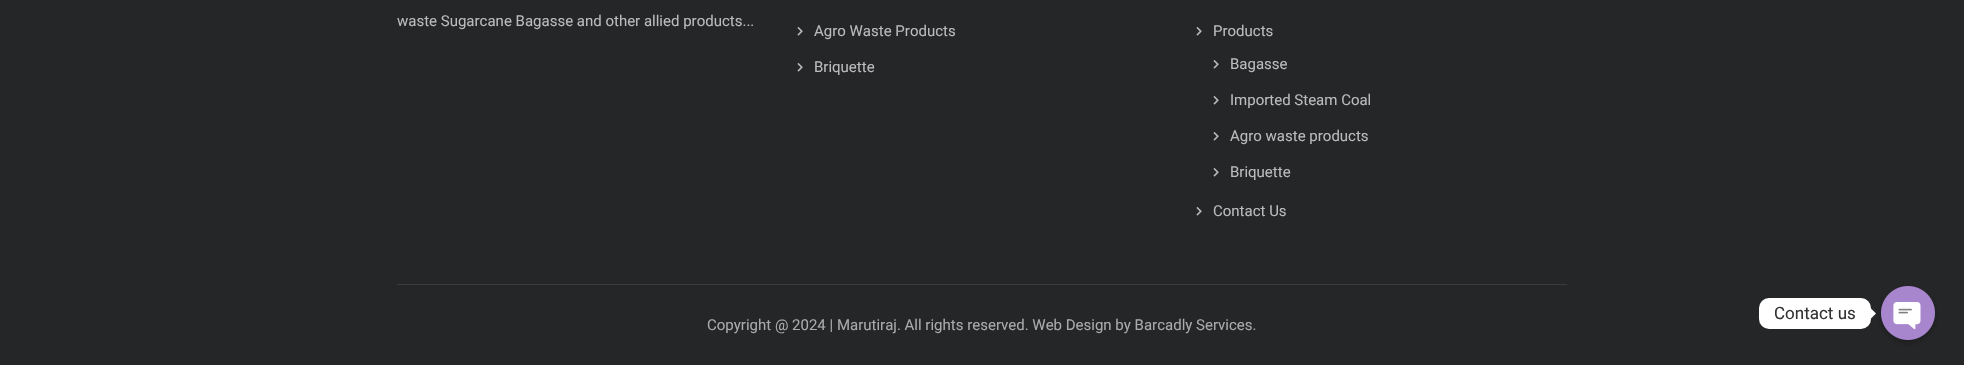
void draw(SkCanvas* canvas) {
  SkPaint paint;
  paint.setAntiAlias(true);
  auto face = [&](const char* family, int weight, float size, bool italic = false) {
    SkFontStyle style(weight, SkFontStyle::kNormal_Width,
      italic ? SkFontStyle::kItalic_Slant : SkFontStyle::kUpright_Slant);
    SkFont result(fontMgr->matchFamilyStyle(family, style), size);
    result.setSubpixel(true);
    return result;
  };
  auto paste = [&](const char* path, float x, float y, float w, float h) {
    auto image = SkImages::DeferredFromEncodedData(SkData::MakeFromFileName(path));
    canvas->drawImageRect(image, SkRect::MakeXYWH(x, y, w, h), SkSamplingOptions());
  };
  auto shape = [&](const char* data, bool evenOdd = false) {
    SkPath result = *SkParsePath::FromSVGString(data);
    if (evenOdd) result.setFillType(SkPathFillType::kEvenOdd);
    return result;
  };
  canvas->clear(0xff252628);
  paste("img/1.png", 797, 27, 6, 9);
  paste("img/1.png", 797, 63, 6, 9);
  paste("img/1.png", 1196, 27, 6, 9);
  paste("img/1.png", 1213, 60, 6, 9);
  paste("img/1.png", 1213, 96, 6, 9);
  paste("img/1.png", 1213, 132, 6, 9);
  paste("img/1.png", 1213, 168, 6, 9);
  paste("img/1.png", 1196, 207, 6, 9);
  paint.setColor(0xff3b3c3f);
  canvas->drawRect(SkRect::MakeXYWH(397, 284, 1170, 1), paint);
  paint.setColor(0xffffffff);
  canvas->drawRoundRect(SkRect::MakeXYWH(1759, 298, 112, 31), 10, 10, paint);
  canvas->drawPath(shape("M1871 318.5V308.5L1876 313.5Z"), paint);
  paint.setColor(0x40000000);
  paint.setMaskFilter(SkMaskFilter::MakeBlur(kNormal_SkBlurStyle, 3));
  canvas->drawRoundRect(SkRect::MakeXYWH(1881, 289, 54, 54), 27, 27, paint);
  paint.setMaskFilter(nullptr);
  paste("img/2.png", 1881, 286, 54, 54);
  auto f0 = face("Roboto", 400, 15);
  paint.setColor(0xffbbbbbb);
  {
    const struct { const char* s; float x, y; } items[] = {
      {"waste Sugarcane Bagasse and other allied products...", 397, 26},
      {"Agro Waste Products", 814, 36},
      {"Briquette", 814, 72},
      {"Products", 1213, 36},
      {"Bagasse", 1230, 69},
      {"Imported Steam Coal", 1230, 105},
      {"Agro waste products", 1230, 141},
      {"Briquette", 1230, 177},
      {"Contact Us", 1213, 216},
    };
    for (auto [s, x, y] : items) {
      canvas->drawString(s, x, y, f0, paint);
    }
  }
  paint.setColor(0xffaaaaaa);
  canvas->drawString("Copyright @ 2024 | Marutiraj. All rights reserved. Web Design by Barcadly Services.", 707, 330, f0, paint);
  auto f1 = face("Roboto", 400, 17);
  paint.setColor(0xff333333);
  canvas->drawString("Contact us", 1774, 319, f1, paint);
}
